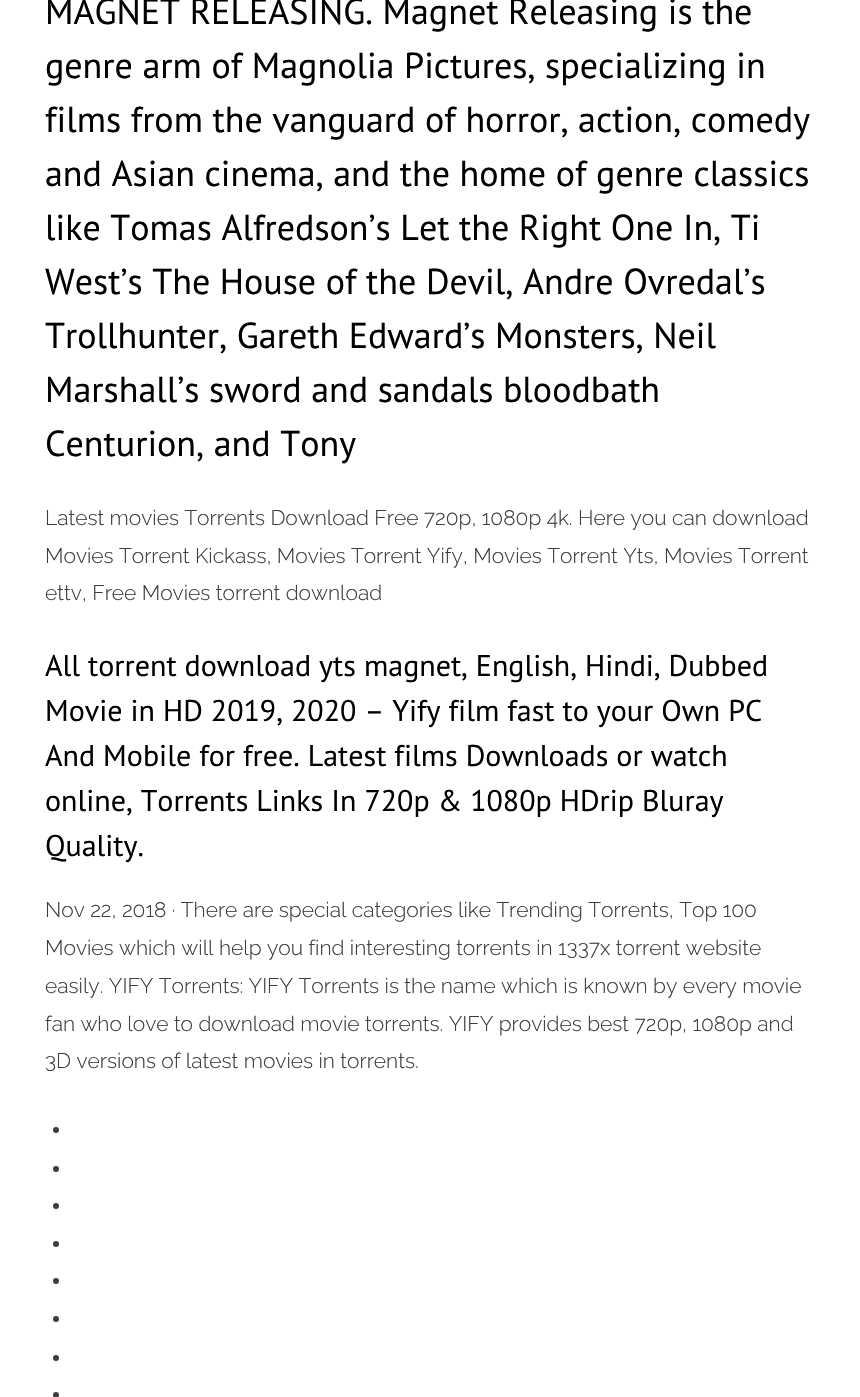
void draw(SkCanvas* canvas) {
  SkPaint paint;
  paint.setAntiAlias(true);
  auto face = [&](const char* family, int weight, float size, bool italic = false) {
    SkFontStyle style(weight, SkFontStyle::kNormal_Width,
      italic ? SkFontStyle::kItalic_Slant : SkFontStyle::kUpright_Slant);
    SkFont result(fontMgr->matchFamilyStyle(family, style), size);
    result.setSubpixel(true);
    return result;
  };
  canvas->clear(0xffffffff);
  paint.setColor(0xff3d3d3d);
  canvas->drawCircle(56, 1130, 3, paint);
  canvas->drawCircle(56, 1169, 3, paint);
  canvas->drawCircle(56, 1206, 3, paint);
  canvas->drawCircle(56, 1244, 3, paint);
  canvas->drawCircle(56, 1281, 3, paint);
  canvas->drawCircle(56, 1319, 3, paint);
  canvas->drawCircle(56, 1358, 3, paint);
  canvas->drawCircle(56, 1395, 3, paint);
  auto f0 = face("PT Sans", 400, 36);
  paint.setColor(0xff000000);
  {
    const struct { const char* s; float x, y; } items[] = {
      {"MAGNET RELEASING. Magnet Releasing is the", 45, 24},
      {"genre arm of Magnolia Pictures, specializing in", 45, 78},
      {"films from the vanguard of horror, action, comedy", 45, 132},
      {"and Asian cinema, and the home of genre classics", 45, 186},
      {"like Tomas Alfredson’s Let the Right One In, Ti", 45, 240},
      {"West’s The House of the Devil, Andre Ovredal’s", 45, 294},
      {"Trollhunter, Gareth Edward’s Monsters, Neil", 45, 348},
      {"Marshall’s sword and sandals bloodbath", 45, 402},
      {"Centurion, and Tony", 45, 456},
    };
    for (auto [s, x, y] : items) {
      canvas->drawString(s, x, y, f0, paint);
    }
  }
  auto f1 = face("Raleway", 300, 21);
  paint.setColor(0xff3d3d3d);
  {
    const struct { const char* s; float x, y; } items[] = {
      {"Latest movies Torrents Download Free 720p, 1080p 4k. Here you can download", 45, 525},
      {"Movies Torrent Kickass, Movies Torrent Yify, Movies Torrent Yts, Movies Torrent", 45, 563},
      {"ettv, Free Movies torrent download", 45, 600},
    };
    for (auto [s, x, y] : items) {
      canvas->drawString(s, x, y, f1, paint);
    }
  }
  auto f2 = face("PT Sans", 400, 30);
  paint.setColor(0xff000000);
  {
    const struct { const char* s; float x, y; } items[] = {
      {"All torrent download yts magnet, English, Hindi, Dubbed", 45, 676},
      {"Movie in HD 2019, 2020 – Yify film fast to your Own PC", 45, 721},
      {"And Mobile for free. Latest films Downloads or watch", 45, 766},
      {"online, Torrents Links In 720p & 1080p HDrip Bluray", 45, 811},
      {"Quality.", 45, 856},
    };
    for (auto [s, x, y] : items) {
      canvas->drawString(s, x, y, f2, paint);
    }
  }
  paint.setColor(0xff3d3d3d);
  {
    const struct { const char* s; float x, y; } items[] = {
      {"Nov 22, 2018 · There are special categories like Trending Torrents, Top 100", 45, 917},
      {"Movies which will help you find interesting torrents in 1337x torrent website", 45, 955},
      {"easily. YIFY Torrents: YIFY Torrents is the name which is known by every movie", 45, 993},
      {"fan who love to download movie torrents. YIFY provides best 720p, 1080p and", 45, 1031},
      {"3D versions of latest movies in torrents.", 45, 1068},
    };
    for (auto [s, x, y] : items) {
      canvas->drawString(s, x, y, f1, paint);
    }
  }
}
